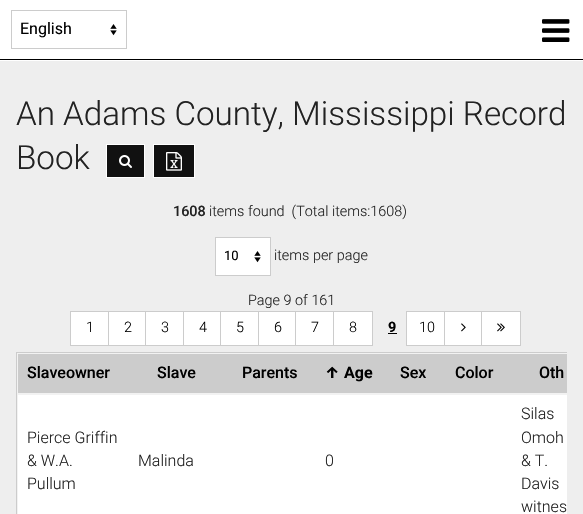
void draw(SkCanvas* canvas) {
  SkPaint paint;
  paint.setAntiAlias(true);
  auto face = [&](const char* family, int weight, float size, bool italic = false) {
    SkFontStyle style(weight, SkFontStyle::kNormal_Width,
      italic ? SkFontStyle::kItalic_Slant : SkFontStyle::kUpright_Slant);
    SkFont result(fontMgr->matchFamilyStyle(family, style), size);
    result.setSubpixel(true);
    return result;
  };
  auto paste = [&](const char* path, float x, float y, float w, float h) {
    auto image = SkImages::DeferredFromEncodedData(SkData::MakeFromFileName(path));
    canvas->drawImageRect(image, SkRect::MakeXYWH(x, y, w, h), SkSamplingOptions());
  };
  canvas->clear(0xffffffff);
  paint.setColor(0xff000000);
  canvas->drawRect(SkRect::MakeXYWH(0, 59, 583, 1), paint);
  paste("img/1.png", 110, 24, 7, 12);
  paint.setStroke(true);
  paint.setStrokeWidth(1);
  paint.setColor(0xffcccccc);
  canvas->drawRect(SkRect::MakeXYWH(11.5f, 10.5f, 115, 38), paint);
  paste("img/2.png", 542, 19, 28, 23);
  paint.setStroke(false);
  paint.setColor(0xffeeeeee);
  canvas->drawRect(SkRect::MakeXYWH(0, 61, 583, 453), paint);
  paint.setColor(0xff111111);
  canvas->drawRect(SkRect::MakeXYWH(106.5f, 144.5f, 38, 33), paint);
  paint.setStroke(true);
  paint.setColor(0xffffffff);
  canvas->drawRect(SkRect::MakeXYWH(106.5f, 144.5f, 38, 33), paint);
  paste("img/3.png", 119, 155, 13, 13);
  paint.setStroke(false);
  paint.setColor(0xff111111);
  canvas->drawRect(SkRect::MakeXYWH(153.5f, 144.5f, 41, 33), paint);
  paint.setStroke(true);
  paint.setColor(0xffffffff);
  canvas->drawRect(SkRect::MakeXYWH(153.5f, 144.5f, 41, 33), paint);
  paste("img/4.png", 166, 152, 16, 19);
  paint.setStroke(false);
  canvas->drawRect(SkRect::MakeXYWH(216, 238, 54, 37), paint);
  paste("img/1.png", 254, 251, 7, 12);
  paint.setStroke(true);
  paint.setColor(0xffcccccc);
  canvas->drawRect(SkRect::MakeXYWH(215.5f, 237.5f, 55, 38), paint);
  paint.setStroke(false);
  paint.setColor(0xffffffff);
  canvas->drawRect(SkRect::MakeXYWH(71, 312, 37, 33), paint);
  paint.setStroke(true);
  paint.setColor(0xffcccccc);
  canvas->drawRect(SkRect::MakeXYWH(70.5f, 311.5f, 39, 34), paint);
  paint.setStroke(false);
  paint.setColor(0xffffffff);
  canvas->drawRect(SkRect::MakeXYWH(109, 312, 36, 33), paint);
  paint.setStroke(true);
  paint.setColor(0xffcccccc);
  canvas->drawRect(SkRect::MakeXYWH(108.5f, 311.5f, 39, 34), paint);
  paint.setStroke(false);
  paint.setColor(0xffffffff);
  canvas->drawRect(SkRect::MakeXYWH(146, 312, 37, 33), paint);
  paint.setStroke(true);
  paint.setColor(0xffcccccc);
  canvas->drawRect(SkRect::MakeXYWH(145.5f, 311.5f, 39, 34), paint);
  paint.setStroke(false);
  paint.setColor(0xffffffff);
  canvas->drawRect(SkRect::MakeXYWH(184, 312, 36, 33), paint);
  paint.setStroke(true);
  paint.setColor(0xffcccccc);
  canvas->drawRect(SkRect::MakeXYWH(183.5f, 311.5f, 39, 34), paint);
  paint.setStroke(false);
  paint.setColor(0xffffffff);
  canvas->drawRect(SkRect::MakeXYWH(221, 312, 37, 33), paint);
  paint.setStroke(true);
  paint.setColor(0xffcccccc);
  canvas->drawRect(SkRect::MakeXYWH(220.5f, 311.5f, 39, 34), paint);
  paint.setStroke(false);
  paint.setColor(0xffffffff);
  canvas->drawRect(SkRect::MakeXYWH(259, 312, 36, 33), paint);
  paint.setStroke(true);
  paint.setColor(0xffcccccc);
  canvas->drawRect(SkRect::MakeXYWH(258.5f, 311.5f, 39, 34), paint);
  paint.setStroke(false);
  paint.setColor(0xffffffff);
  canvas->drawRect(SkRect::MakeXYWH(296, 312, 37, 33), paint);
  paint.setStroke(true);
  paint.setColor(0xffcccccc);
  canvas->drawRect(SkRect::MakeXYWH(295.5f, 311.5f, 39, 34), paint);
  paint.setStroke(false);
  paint.setColor(0xffffffff);
  canvas->drawRect(SkRect::MakeXYWH(333.5f, 311.5f, 39, 34), paint);
  paint.setStroke(true);
  paint.setColor(0xffcccccc);
  canvas->drawRect(SkRect::MakeXYWH(333.5f, 311.5f, 39, 34), paint);
  paint.setStroke(false);
  paint.setColor(0xff000000);
  canvas->drawRect(SkRect::MakeXYWH(388, 333, 9, 1), paint);
  paint.setColor(0xffffffff);
  canvas->drawRect(SkRect::MakeXYWH(407, 312, 37, 33), paint);
  paint.setStroke(true);
  paint.setColor(0xffcccccc);
  canvas->drawRect(SkRect::MakeXYWH(406.5f, 311.5f, 39, 34), paint);
  paint.setStroke(false);
  paint.setColor(0xffffffff);
  canvas->drawRect(SkRect::MakeXYWH(445, 312, 36, 33), paint);
  paint.setStroke(true);
  paint.setColor(0xffcccccc);
  canvas->drawRect(SkRect::MakeXYWH(444.5f, 311.5f, 39, 34), paint);
  paste("img/5.png", 461, 323, 5, 9);
  paint.setStroke(false);
  paint.setColor(0xffffffff);
  canvas->drawRect(SkRect::MakeXYWH(481.5f, 311.5f, 39, 34), paint);
  paint.setStroke(true);
  paint.setColor(0xffcccccc);
  canvas->drawRect(SkRect::MakeXYWH(481.5f, 311.5f, 39, 34), paint);
  paste("img/6.png", 497, 323, 8, 9);
  canvas->save();
  canvas->clipRect(SkRect::MakeXYWH(16, 352, 551, 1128));
  canvas->drawRect(SkRect::MakeXYWH(16.5f, 352.5f, 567, 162), paint);
  canvas->restore();
  paint.setStroke(false);
  canvas->drawRect(SkRect::MakeXYWH(18, 354, 549, 39), paint);
  canvas->save();
  canvas->clipRect(SkRect::MakeXYWH(16, 352, 551, 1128));
  paint.setStroke(true);
  paint.setColor(0xfff2f2f2);
  canvas->drawRect(SkRect::MakeXYWH(17.5f, 353.5f, 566, 40), paint);
  canvas->restore();
  paint.setStroke(false);
  paint.setColor(0xffffffff);
  canvas->drawRect(SkRect::MakeXYWH(18, 395, 549, 119), paint);
  canvas->save();
  canvas->clipRect(SkRect::MakeXYWH(16, 352, 551, 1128));
  paint.setStroke(true);
  paint.setColor(0xfff2f2f2);
  canvas->drawRect(SkRect::MakeXYWH(17.5f, 394.5f, 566, 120), paint);
  canvas->restore();
  auto f0 = face("Roboto", 400, 16);
  paint.setStroke(false);
  paint.setColor(0xff000000);
  canvas->drawString("English", 20, 34, f0, paint);
  auto f1 = face("Roboto", 300, 33.2f);
  paint.setColor(0xff222222);
  canvas->drawString("An Adams County, Mississippi Record", 16, 125, f1, paint);
  canvas->drawString("Book", 16, 169, f1, paint);
  auto f2 = face("Roboto", 500, 14.4f);
  canvas->drawString("1608", 173, 216, f2, paint);
  auto f3 = face("Roboto", 300, 14.4f);
  canvas->drawString("items found  (Total items:1608)", 209, 216, f3, paint);
  auto f4 = face("Roboto", 400, 13);
  paint.setColor(0xff000000);
  canvas->drawString("10", 224, 260, f4, paint);
  paint.setColor(0xff222222);
  canvas->drawString("items per page", 274, 260, f3, paint);
  canvas->drawString("Page 9 of 161", 248, 305, f3, paint);
  paint.setColor(0xff000000);
  {
    const struct { const char* s; float x, y; } items[] = {
      {"1", 86, 332},
      {"2", 124, 332},
      {"3", 161, 332},
      {"4", 199, 332},
      {"5", 236, 332},
      {"6", 274, 332},
      {"7", 311, 332},
      {"8", 349, 332},
    };
    for (auto [s, x, y] : items) {
      canvas->drawString(s, x, y, f3, paint);
    }
  }
  auto f5 = face("Roboto", 700, 14.4f);
  canvas->drawString("9", 388, 332, f5, paint);
  canvas->drawString("10", 419, 332, f3, paint);
  auto f6 = face("Roboto", 500, 16);
  {
    const struct { const char* s; float x, y; } items[] = {
      {"Slaveowner", 27, 378},
      {"Slave", 157, 378},
      {"Parents", 242, 378},
    };
    for (auto [s, x, y] : items) {
      canvas->drawString(s, x, y, f6, paint);
    }
  }
  auto f7 = face("Fira Sans", 700, 16);
  canvas->drawString("↑", 325, 378, f7, paint);
  auto f8 = face("Roboto", 700, 16);
  canvas->drawString("Age", 344, 378, f8, paint);
  {
    const struct { const char* s; float x, y; } items[] = {
      {"Sex", 400, 378},
      {"Color", 455, 378},
      {"Oth", 539, 378},
    };
    for (auto [s, x, y] : items) {
      canvas->drawString(s, x, y, f6, paint);
    }
  }
  auto f9 = face("Roboto", 300, 16);
  paint.setColor(0xff222222);
  {
    const struct { const char* s; float x, y; } items[] = {
      {"Pierce Griffin", 27, 443},
      {"& W.A.", 27, 466},
      {"Pullum", 27, 489},
      {"Malinda", 138, 466},
      {"0", 325, 466},
      {"Silas", 521, 419},
      {"Omoh", 521, 443},
      {"& T.", 521, 466},
      {"Davis", 521, 489},
      {"witnes", 521, 512},
    };
    for (auto [s, x, y] : items) {
      canvas->drawString(s, x, y, f9, paint);
    }
  }
}
